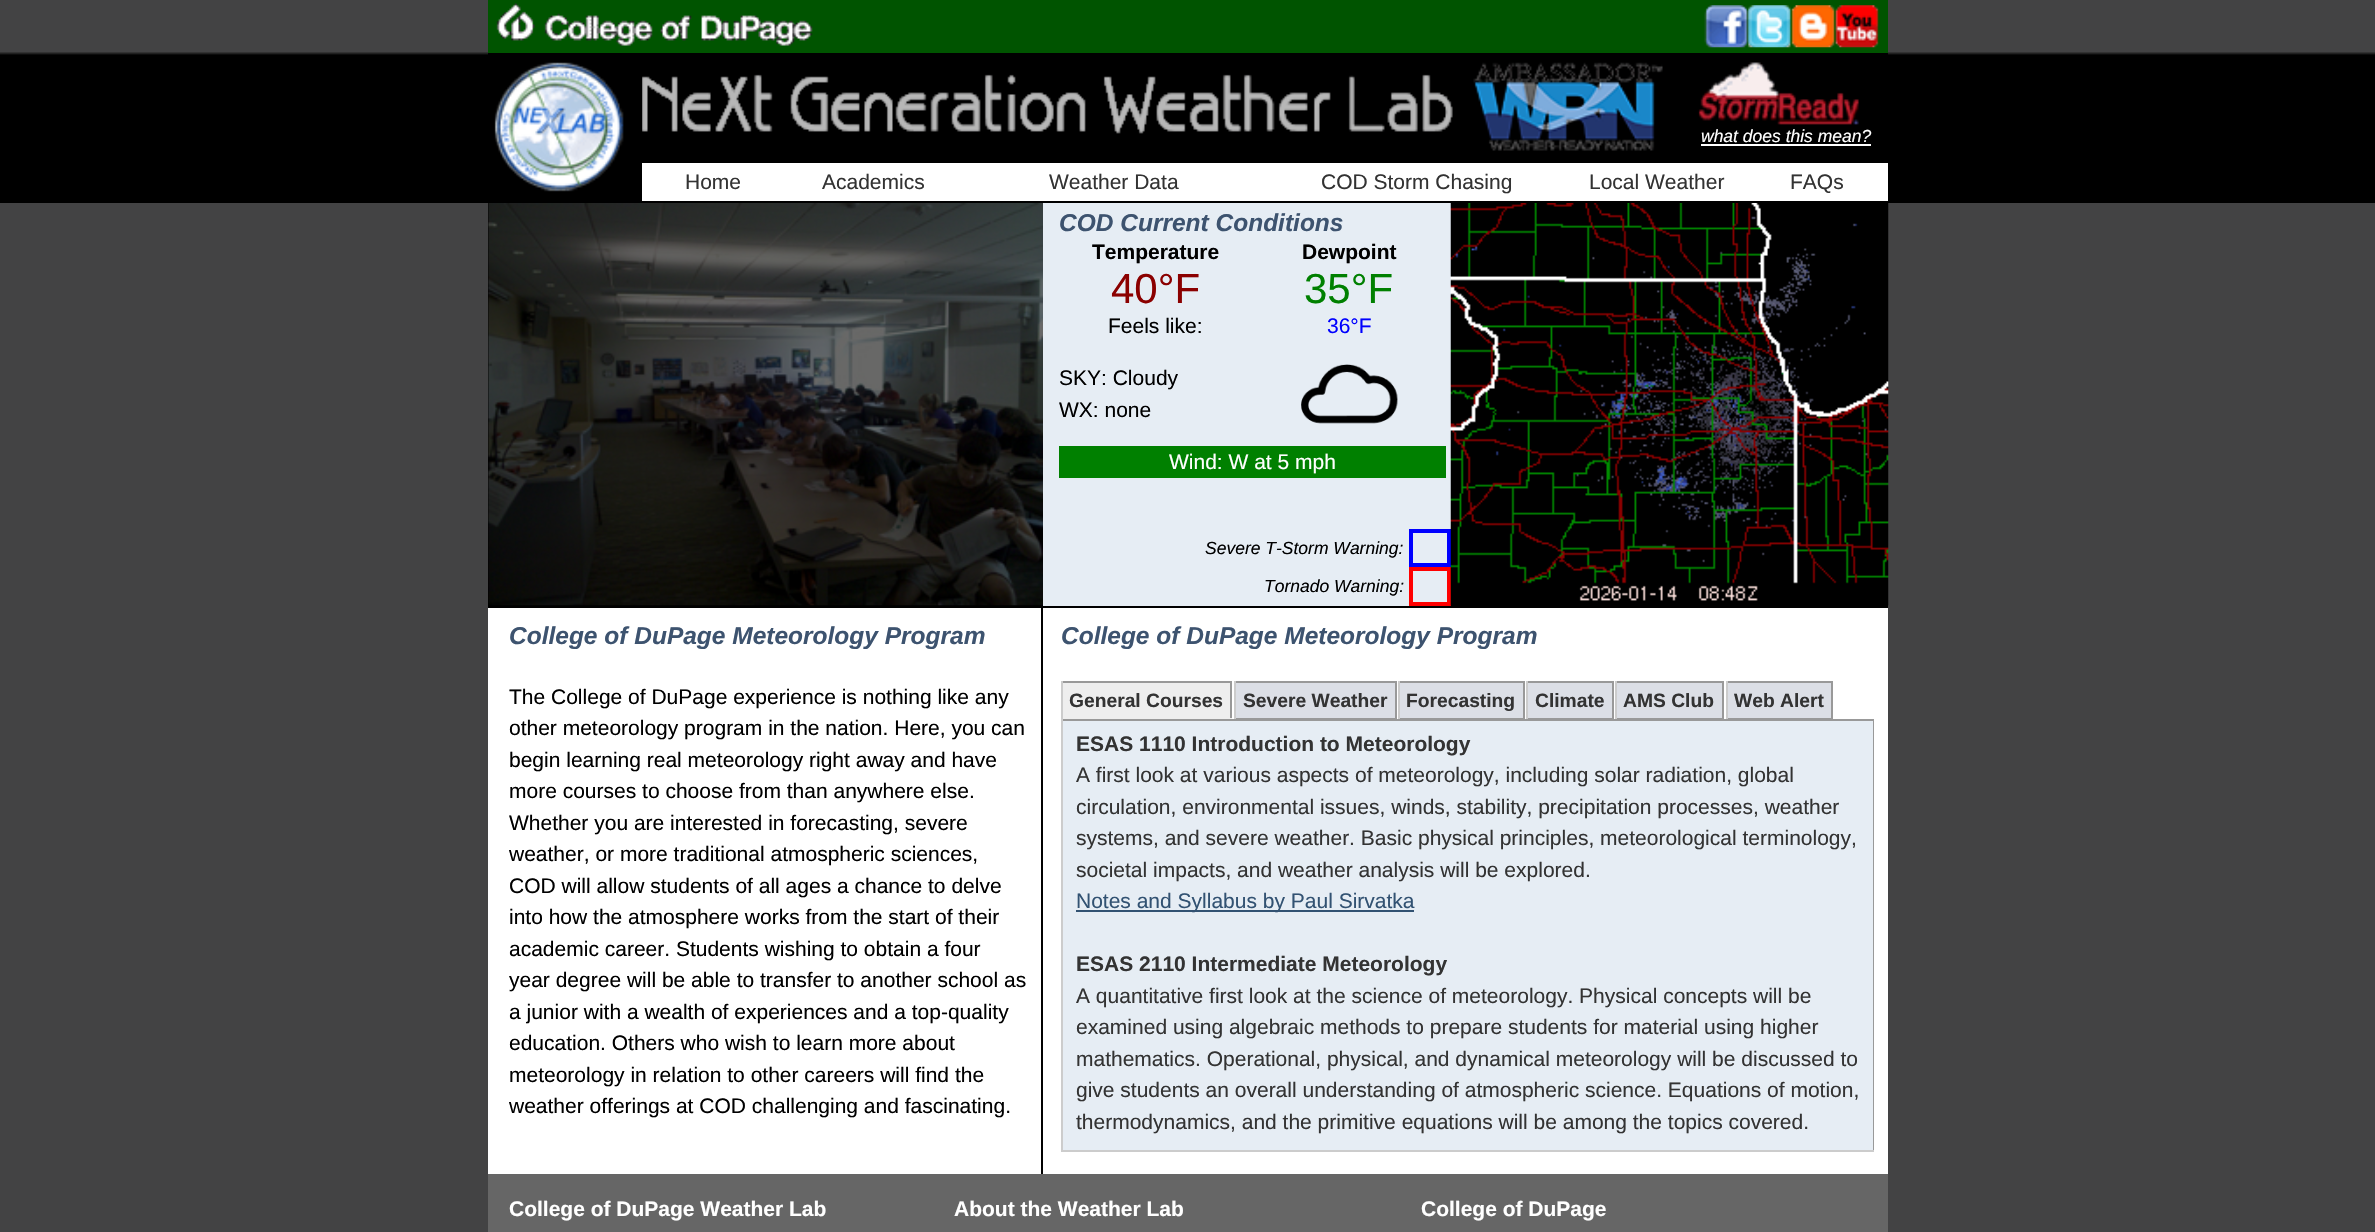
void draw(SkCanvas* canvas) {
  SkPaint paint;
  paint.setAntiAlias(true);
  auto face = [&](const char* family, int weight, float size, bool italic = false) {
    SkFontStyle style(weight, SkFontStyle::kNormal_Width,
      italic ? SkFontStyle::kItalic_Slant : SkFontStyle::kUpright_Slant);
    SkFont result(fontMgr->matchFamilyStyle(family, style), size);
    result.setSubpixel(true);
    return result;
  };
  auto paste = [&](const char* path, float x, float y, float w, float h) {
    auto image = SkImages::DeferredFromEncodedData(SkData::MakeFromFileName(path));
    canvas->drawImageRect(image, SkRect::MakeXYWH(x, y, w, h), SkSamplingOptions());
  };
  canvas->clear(0xff434344);
  paste("img/1.png", 0, 52, 2375, 151);
  paint.setColor(0xff005400);
  canvas->drawRect(SkRect::MakeXYWH(488, 0, 1400, 53), paint);
  paste("img/2.png", 496, 3, 317, 43);
  paste("img/3.png", 1704, 5, 175, 43);
  paint.setColor(0xff000000);
  canvas->drawRect(SkRect::MakeXYWH(488, 53, 1400, 2), paint);
  paste("img/4.png", 494, 62, 130, 130);
  paste("img/5.png", 642, 74, 811, 60);
  paste("img/6.png", 1473, 62, 190, 89);
  paste("img/7.png", 1698, 62, 161, 63);
  {
    const struct { float x, y, w, h; SkColor color; } items[] = {
      {1701, 144, 170, 2, 0xffffffff},
      {642, 163, 1246, 38, 0xffffffff},
      {488, 608, 1400, 566, 0xffffffff},
      {488, 203, 555, 403, 0xff000000},
    };
    for (auto [x, y, w, h, color] : items) {
      paint.setColor(color);
      canvas->drawRect(SkRect::MakeXYWH(x, y, w, h), paint);
    }
  }
  paste("img/8.png", 488, 203, 555, 403);
  paint.setColor(0xffe6edf4);
  canvas->drawRect(SkRect::MakeXYWH(1043, 203, 408, 326), paint);
  paste("img/9.png", 1301, 364, 97, 60);
  paint.setColor(0xff008000);
  canvas->drawRect(SkRect::MakeXYWH(1059, 446, 387, 32), paint);
  paint.setColor(0xffe6edf4);
  canvas->drawRect(SkRect::MakeXYWH(1043, 529, 404, 77), paint);
  paint.setStroke(true);
  paint.setStrokeWidth(4);
  paint.setColor(0xff0000ff);
  canvas->drawRect(SkRect::MakeXYWH(1411, 531, 38, 34), paint);
  paint.setColor(0xffff0000);
  canvas->drawRect(SkRect::MakeXYWH(1411, 569, 38, 35), paint);
  paint.setStroke(false);
  paint.setColor(0xff000000);
  canvas->drawRect(SkRect::MakeXYWH(1451, 605, 437, 1), paint);
  paste("img/10.png", 1450, 203, 439, 403);
  {
    const struct { float x, y, w, h; SkColor color; } items[] = {
      {488, 606, 1400, 2, 0xff000000},
      {1041, 606, 2, 568, 0xff000000},
      {1063, 683, 167, 35, 0xffeeeeee},
      {1061, 681, 171, 2, 0xff999999},
      {1230, 681, 2, 38, 0xff999999},
      {1061, 718, 171, 1, 0xffeeeeee},
      {1061, 681, 2, 38, 0xffcccccc},
      {1236, 683, 159, 35, 0xffdcdfe6},
      {1234, 681, 163, 2, 0xff999999},
      {1395, 681, 2, 38, 0xff999999},
      {1234, 718, 163, 1, 0xff999999},
      {1234, 681, 2, 38, 0xffcccccc},
      {1400, 683, 123, 35, 0xffdcdfe6},
      {1398, 681, 126, 2, 0xff999999},
      {1523, 681, 2, 38, 0xff999999},
      {1398, 718, 126, 1, 0xff999999},
      {1398, 681, 2, 38, 0xffcccccc},
      {1528, 683, 84, 35, 0xffdcdfe6},
      {1526, 681, 88, 2, 0xff999999},
      {1612, 681, 2, 38, 0xff999999},
      {1526, 718, 88, 1, 0xff999999},
      {1526, 681, 2, 38, 0xffcccccc},
      {1617, 683, 105, 35, 0xffdcdfe6},
      {1615, 681, 109, 2, 0xff999999},
      {1722, 681, 2, 38, 0xff999999},
      {1615, 718, 109, 1, 0xff999999},
      {1615, 681, 2, 38, 0xffcccccc},
      {1728, 683, 103, 35, 0xffdcdfe6},
      {1726, 681, 106, 2, 0xff999999},
      {1831, 681, 2, 38, 0xff999999},
      {1726, 718, 106, 1, 0xff999999},
      {1726, 681, 2, 38, 0xffcccccc},
      {1063, 721, 810, 429, 0xffe6edf4},
      {1061, 719, 813, 2, 0xff999999},
      {1873, 719, 1, 433, 0xff999999},
      {1061, 1150, 813, 2, 0xffcccccc},
      {1061, 719, 2, 433, 0xffcccccc},
      {1076, 910, 338, 2, 0xff325272},
      {488, 1174, 1400, 58, 0xff666666},
    };
    for (auto [x, y, w, h, color] : items) {
      paint.setColor(color);
      canvas->drawRect(SkRect::MakeXYWH(x, y, w, h), paint);
    }
  }
  auto f0 = face("Liberation Sans", 400, 17.5f, true);
  paint.setColor(0xffffffff);
  canvas->drawString("what does this mean?", 1701, 142, f0, paint);
  auto f1 = face("Liberation Sans", 400, 21);
  paint.setColor(0xff333333);
  {
    const struct { const char* s; float x, y; } items[] = {
      {"Home", 685, 189},
      {"Academics", 822, 189},
      {"Weather Data", 1049, 189},
      {"COD Storm Chasing", 1321, 189},
      {"Local Weather", 1589, 189},
      {"FAQs", 1790, 189},
    };
    for (auto [s, x, y] : items) {
      canvas->drawString(s, x, y, f1, paint);
    }
  }
  auto f2 = face("Liberation Sans", 700, 24.5f, true);
  paint.setColor(0xff3d536f);
  canvas->drawString("COD Current Conditions", 1059, 231, f2, paint);
  auto f3 = face("Liberation Sans", 700, 21);
  paint.setColor(0xff000000);
  canvas->drawString("Temperature", 1092, 259, f3, paint);
  canvas->drawString("Dewpoint", 1302, 259, f3, paint);
  auto f4 = face("Liberation Sans", 400, 42);
  paint.setColor(0xff8b0000);
  canvas->drawString("40°F", 1111, 303, f4, paint);
  paint.setColor(0xff008000);
  canvas->drawString("35°F", 1304, 303, f4, paint);
  paint.setColor(0xff000000);
  canvas->drawString("Feels like:", 1108, 333, f1, paint);
  paint.setColor(0xff0000ff);
  canvas->drawString("36°F", 1327, 333, f1, paint);
  paint.setColor(0xff000000);
  canvas->drawString("SKY: Cloudy", 1059, 385, f1, paint);
  canvas->drawString("WX: none", 1059, 417, f1, paint);
  paint.setColor(0xffffffff);
  canvas->drawString("Wind: W at 5 mph", 1169, 469, f1, paint);
  paint.setColor(0xff000000);
  canvas->drawString("Severe T-Storm Warning:", 1205, 554, f0, paint);
  canvas->drawString("Tornado Warning:", 1264, 592, f0, paint);
  paint.setColor(0xff3d536f);
  canvas->drawString("College of DuPage Meteorology Program", 509, 644, f2, paint);
  paint.setColor(0xff000000);
  {
    const struct { const char* s; float x, y; } items[] = {
      {"The College of DuPage experience is nothing like any", 509, 704},
      {"other meteorology program in the nation. Here, you can", 509, 735},
      {"begin learning real meteorology right away and have", 509, 767},
      {"more courses to choose from than anywhere else.", 509, 798},
      {"Whether you are interested in forecasting, severe", 509, 830},
      {"weather, or more traditional atmospheric sciences,", 509, 861},
      {"COD will allow students of all ages a chance to delve", 509, 893},
      {"into how the atmosphere works from the start of their", 509, 924},
      {"academic career. Students wishing to obtain a four", 509, 956},
      {"year degree will be able to transfer to another school as", 509, 987},
      {"a junior with a wealth of experiences and a top-quality", 509, 1019},
      {"education. Others who wish to learn more about", 509, 1050},
      {"meteorology in relation to other careers will find the", 509, 1082},
      {"weather offerings at COD challenging and fascinating.", 509, 1113},
    };
    for (auto [s, x, y] : items) {
      canvas->drawString(s, x, y, f1, paint);
    }
  }
  paint.setColor(0xff3d536f);
  canvas->drawString("College of DuPage Meteorology Program", 1061, 644, f2, paint);
  auto f5 = face("Liberation Sans", 700, 19.25f);
  paint.setColor(0xff333333);
  {
    const struct { const char* s; float x, y; } items[] = {
      {"General Courses", 1069, 707},
      {"Severe Weather", 1243, 707},
      {"Forecasting", 1406, 707},
      {"Climate", 1535, 707},
      {"AMS Club", 1623, 707},
      {"Web Alert", 1734, 707},
    };
    for (auto [s, x, y] : items) {
      canvas->drawString(s, x, y, f5, paint);
    }
  }
  canvas->drawString("ESAS 1110 Introduction to Meteorology", 1076, 751, f3, paint);
  {
    const struct { const char* s; float x, y; } items[] = {
      {"A first look at various aspects of meteorology, including solar radiation, global", 1076, 782},
      {"circulation, environmental issues, winds, stability, precipitation processes, weather", 1076, 814},
      {"systems, and severe weather. Basic physical principles, meteorological terminology,", 1076, 845},
      {"societal impacts, and weather analysis will be explored.", 1076, 877},
    };
    for (auto [s, x, y] : items) {
      canvas->drawString(s, x, y, f1, paint);
    }
  }
  paint.setColor(0xff325272);
  canvas->drawString("Notes and Syllabus by Paul Sirvatka", 1076, 908, f1, paint);
  paint.setColor(0xff333333);
  canvas->drawString("ESAS 2110 Intermediate Meteorology", 1076, 971, f3, paint);
  {
    const struct { const char* s; float x, y; } items[] = {
      {"A quantitative first look at the science of meteorology. Physical concepts will be", 1076, 1003},
      {"examined using algebraic methods to prepare students for material using higher", 1076, 1034},
      {"mathematics. Operational, physical, and dynamical meteorology will be discussed to", 1076, 1066},
      {"give students an overall understanding of atmospheric science. Equations of motion,", 1076, 1097},
      {"thermodynamics, and the primitive equations will be among the topics covered.", 1076, 1129},
    };
    for (auto [s, x, y] : items) {
      canvas->drawString(s, x, y, f1, paint);
    }
  }
  paint.setColor(0xffffffff);
  {
    const struct { const char* s; float x, y; } items[] = {
      {"College of DuPage Weather Lab", 509, 1216},
      {"About the Weather Lab", 954, 1216},
      {"College of DuPage", 1421, 1216},
    };
    for (auto [s, x, y] : items) {
      canvas->drawString(s, x, y, f3, paint);
    }
  }
}
